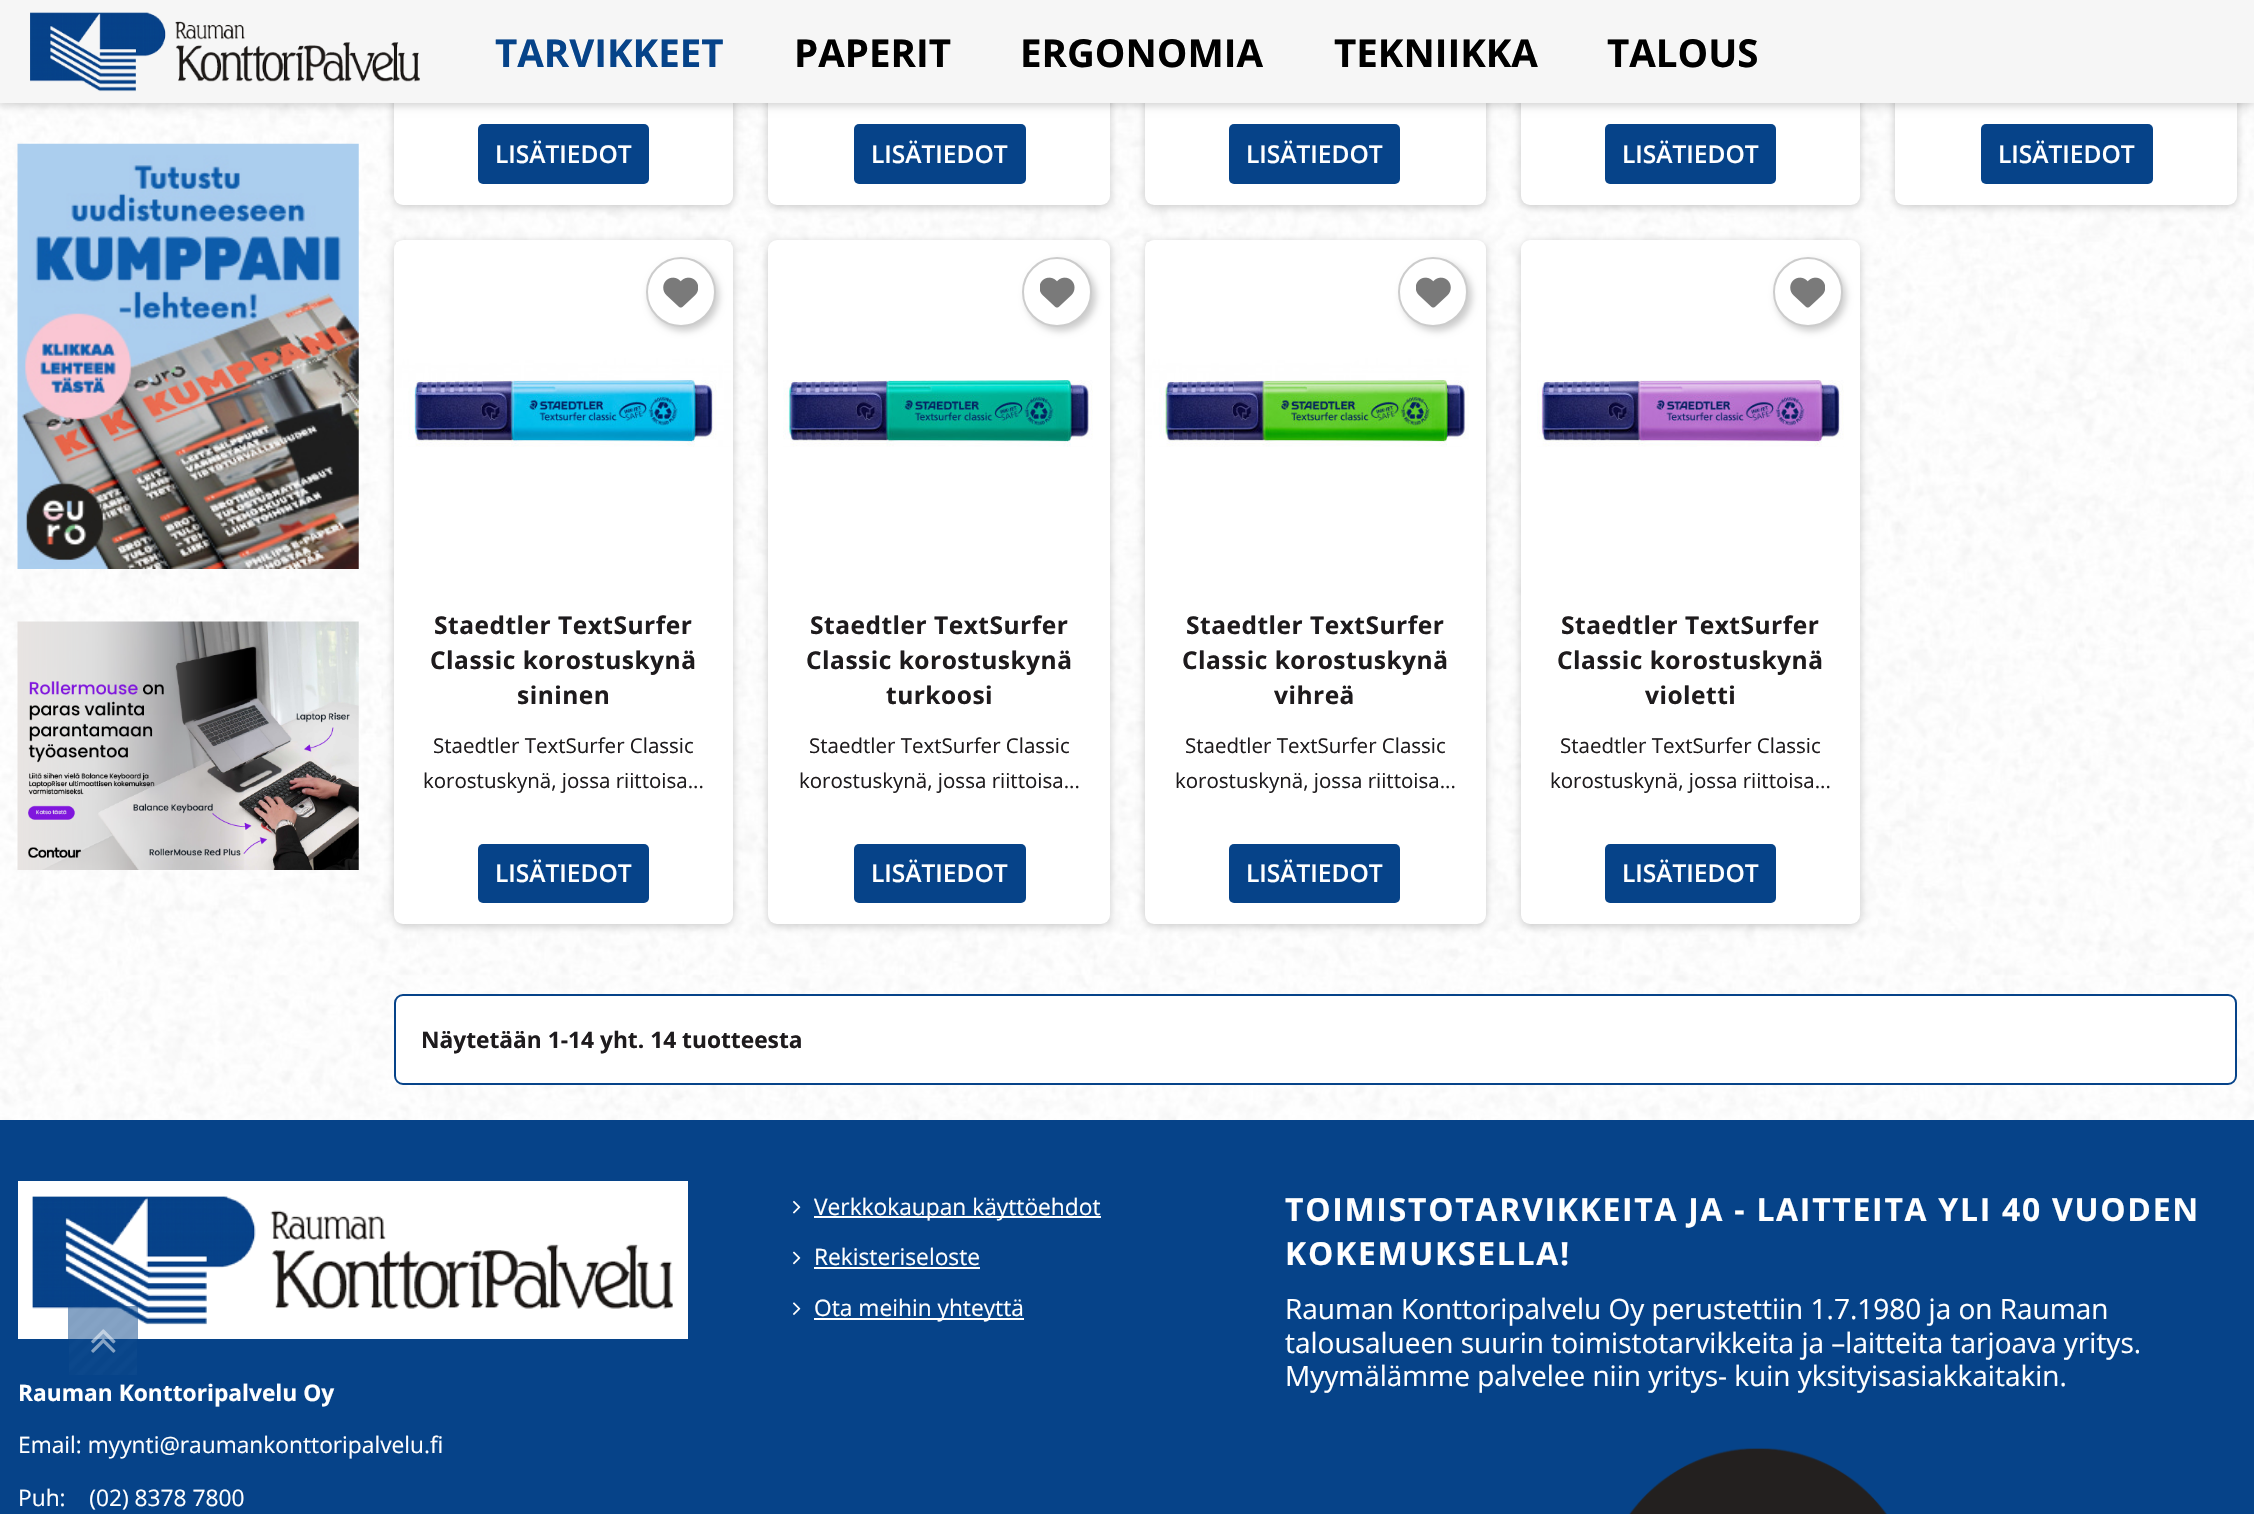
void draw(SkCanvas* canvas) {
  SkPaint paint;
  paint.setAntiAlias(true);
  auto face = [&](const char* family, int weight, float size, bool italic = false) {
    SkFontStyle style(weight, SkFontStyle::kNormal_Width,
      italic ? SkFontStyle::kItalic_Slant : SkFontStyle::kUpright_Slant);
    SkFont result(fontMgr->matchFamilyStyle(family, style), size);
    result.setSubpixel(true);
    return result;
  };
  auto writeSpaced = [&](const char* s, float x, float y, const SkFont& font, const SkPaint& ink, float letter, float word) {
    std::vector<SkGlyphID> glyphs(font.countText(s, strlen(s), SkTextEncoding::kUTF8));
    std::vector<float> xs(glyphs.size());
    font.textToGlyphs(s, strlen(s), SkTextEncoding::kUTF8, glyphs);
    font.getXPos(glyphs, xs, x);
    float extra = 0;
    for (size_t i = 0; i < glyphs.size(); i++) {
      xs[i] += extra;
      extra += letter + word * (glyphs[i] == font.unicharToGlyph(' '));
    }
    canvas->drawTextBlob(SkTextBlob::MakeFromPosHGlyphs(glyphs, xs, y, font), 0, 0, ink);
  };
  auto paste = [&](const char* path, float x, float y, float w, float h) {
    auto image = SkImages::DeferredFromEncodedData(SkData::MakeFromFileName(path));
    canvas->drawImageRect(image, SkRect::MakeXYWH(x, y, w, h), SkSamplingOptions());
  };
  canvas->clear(0xffffffff);
  paste("img/1.png", 0, 103, 2254, 1017);
  paint.setColor(0x33000000);
  paint.setMaskFilter(SkMaskFilter::MakeBlur(kNormal_SkBlurStyle, 4.5f));
  canvas->drawRoundRect(SkRect::MakeXYWH(394, -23, 339, 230), 9, 9, paint);
  paint.setMaskFilter(nullptr);
  paint.setColor(0xffffffff);
  canvas->drawRoundRect(SkRect::MakeXYWH(394, -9, 339, 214), 9, 9, paint);
  paint.setColor(0x33000000);
  paint.setMaskFilter(SkMaskFilter::MakeBlur(kNormal_SkBlurStyle, 4.5f));
  canvas->drawRoundRect(SkRect::MakeXYWH(768, -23, 342, 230), 9, 9, paint);
  paint.setMaskFilter(nullptr);
  paint.setColor(0xffffffff);
  canvas->drawRoundRect(SkRect::MakeXYWH(768, -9, 342, 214), 9, 9, paint);
  paint.setColor(0x33000000);
  paint.setMaskFilter(SkMaskFilter::MakeBlur(kNormal_SkBlurStyle, 4.5f));
  canvas->drawRoundRect(SkRect::MakeXYWH(1145, -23, 341, 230), 9, 9, paint);
  paint.setMaskFilter(nullptr);
  paint.setColor(0xffffffff);
  canvas->drawRoundRect(SkRect::MakeXYWH(1145, -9, 341, 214), 9, 9, paint);
  paint.setColor(0x33000000);
  paint.setMaskFilter(SkMaskFilter::MakeBlur(kNormal_SkBlurStyle, 4.5f));
  canvas->drawRoundRect(SkRect::MakeXYWH(1521, -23, 339, 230), 9, 9, paint);
  paint.setMaskFilter(nullptr);
  paint.setColor(0xffffffff);
  canvas->drawRoundRect(SkRect::MakeXYWH(1521, -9, 339, 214), 9, 9, paint);
  paint.setColor(0x33000000);
  paint.setMaskFilter(SkMaskFilter::MakeBlur(kNormal_SkBlurStyle, 4.5f));
  canvas->drawRoundRect(SkRect::MakeXYWH(1895, -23, 342, 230), 9, 9, paint);
  paint.setMaskFilter(nullptr);
  paint.setColor(0xffffffff);
  canvas->drawRoundRect(SkRect::MakeXYWH(1895, -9, 342, 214), 9, 9, paint);
  paint.setColor(0x33000000);
  paint.setMaskFilter(SkMaskFilter::MakeBlur(kNormal_SkBlurStyle, 4.5f));
  canvas->drawRect(SkRect::MakeXYWH(0, 2, 2254, 103), paint);
  paint.setMaskFilter(nullptr);
  paint.setColor(0xfff6f6f6);
  canvas->drawRect(SkRect::MakeXYWH(0, 0, 2254, 103), paint);
  paste("img/2.png", 30, 12, 390, 80);
  paste("img/3.png", 17, 143, 342, 426);
  paste("img/4.png", 17, 621, 342, 249);
  paint.setColor(0xff064389);
  canvas->drawRoundRect(SkRect::MakeXYWH(478, 124, 171, 60), 5, 5, paint);
  canvas->drawRoundRect(SkRect::MakeXYWH(854, 124, 172, 60), 5, 5, paint);
  canvas->drawRoundRect(SkRect::MakeXYWH(1229, 124, 171, 60), 5, 5, paint);
  canvas->drawRoundRect(SkRect::MakeXYWH(1605, 124, 171, 60), 5, 5, paint);
  canvas->drawRoundRect(SkRect::MakeXYWH(1981, 124, 172, 60), 5, 5, paint);
  paint.setColor(0x33000000);
  paint.setMaskFilter(SkMaskFilter::MakeBlur(kNormal_SkBlurStyle, 4.5f));
  canvas->drawRoundRect(SkRect::MakeXYWH(394, 242, 339, 684), 9, 9, paint);
  paint.setMaskFilter(nullptr);
  paint.setColor(0xffffffff);
  canvas->drawRoundRect(SkRect::MakeXYWH(394, 240, 339, 684), 9, 9, paint);
  paste("img/5.png", 396, 242, 335, 205);
  paint.setColor(0x33000000);
  paint.setMaskFilter(SkMaskFilter::MakeBlur(kNormal_SkBlurStyle, 3.5f));
  canvas->drawRoundRect(SkRect::MakeXYWH(649, 261, 70, 70), 35, 35, paint);
  paint.setMaskFilter(nullptr);
  paint.setColor(0xffffffff);
  canvas->drawCircle(681, 292, 34, paint);
  paint.setStroke(true);
  paint.setStrokeWidth(2);
  paint.setColor(0xffcccccc);
  canvas->drawCircle(681, 292, 34, paint);
  paste("img/6.png", 663, 277, 35, 31);
  paint.setStroke(false);
  paint.setColor(0xff064389);
  canvas->drawRoundRect(SkRect::MakeXYWH(478, 844, 171, 59), 5, 5, paint);
  paint.setColor(0x33000000);
  paint.setMaskFilter(SkMaskFilter::MakeBlur(kNormal_SkBlurStyle, 4.5f));
  canvas->drawRoundRect(SkRect::MakeXYWH(768, 242, 342, 684), 9, 9, paint);
  paint.setMaskFilter(nullptr);
  paint.setColor(0xffffffff);
  canvas->drawRoundRect(SkRect::MakeXYWH(768, 240, 342, 684), 9, 9, paint);
  paste("img/7.png", 783, 380, 310, 67);
  paint.setColor(0x33000000);
  paint.setMaskFilter(SkMaskFilter::MakeBlur(kNormal_SkBlurStyle, 3.5f));
  canvas->drawRoundRect(SkRect::MakeXYWH(1026, 261, 70, 70), 35, 35, paint);
  paint.setMaskFilter(nullptr);
  paint.setColor(0xffffffff);
  canvas->drawCircle(1057, 292, 34, paint);
  paint.setStroke(true);
  paint.setColor(0xffcccccc);
  canvas->drawCircle(1057, 292, 34, paint);
  paste("img/8.png", 1040, 277, 35, 31);
  paint.setStroke(false);
  paint.setColor(0xff064389);
  canvas->drawRoundRect(SkRect::MakeXYWH(854, 844, 172, 59), 5, 5, paint);
  paint.setColor(0x33000000);
  paint.setMaskFilter(SkMaskFilter::MakeBlur(kNormal_SkBlurStyle, 4.5f));
  canvas->drawRoundRect(SkRect::MakeXYWH(1145, 242, 341, 684), 9, 9, paint);
  paint.setMaskFilter(nullptr);
  paint.setColor(0xffffffff);
  canvas->drawRoundRect(SkRect::MakeXYWH(1145, 240, 341, 684), 9, 9, paint);
  paste("img/9.png", 1146, 242, 323, 205);
  paint.setColor(0x33000000);
  paint.setMaskFilter(SkMaskFilter::MakeBlur(kNormal_SkBlurStyle, 3.5f));
  canvas->drawRoundRect(SkRect::MakeXYWH(1402, 261, 70, 70), 35, 35, paint);
  paint.setMaskFilter(nullptr);
  paint.setColor(0xffffffff);
  canvas->drawCircle(1433, 292, 34, paint);
  paint.setStroke(true);
  paint.setColor(0xffcccccc);
  canvas->drawCircle(1433, 292, 34, paint);
  paste("img/10.png", 1416, 277, 35, 31);
  paint.setStroke(false);
  paint.setColor(0xff064389);
  canvas->drawRoundRect(SkRect::MakeXYWH(1229, 844, 171, 59), 5, 5, paint);
  paint.setColor(0x33000000);
  paint.setMaskFilter(SkMaskFilter::MakeBlur(kNormal_SkBlurStyle, 4.5f));
  canvas->drawRoundRect(SkRect::MakeXYWH(1521, 242, 339, 684), 9, 9, paint);
  paint.setMaskFilter(nullptr);
  paint.setColor(0xffffffff);
  canvas->drawRoundRect(SkRect::MakeXYWH(1521, 240, 339, 684), 9, 9, paint);
  paste("img/11.png", 1537, 380, 307, 67);
  paint.setColor(0x33000000);
  paint.setMaskFilter(SkMaskFilter::MakeBlur(kNormal_SkBlurStyle, 3.5f));
  canvas->drawRoundRect(SkRect::MakeXYWH(1776, 261, 70, 70), 35, 35, paint);
  paint.setMaskFilter(nullptr);
  paint.setColor(0xffffffff);
  canvas->drawCircle(1808, 292, 34, paint);
  paint.setStroke(true);
  paint.setColor(0xffcccccc);
  canvas->drawCircle(1808, 292, 34, paint);
  paste("img/6.png", 1790, 277, 35, 31);
  paint.setStroke(false);
  paint.setColor(0xff064389);
  canvas->drawRoundRect(SkRect::MakeXYWH(1605, 844, 171, 59), 5, 5, paint);
  paint.setColor(0xffffffff);
  canvas->drawRoundRect(SkRect::MakeXYWH(395, 995, 1841, 89), 8, 8, paint);
  paint.setStroke(true);
  paint.setColor(0xff064389);
  canvas->drawRoundRect(SkRect::MakeXYWH(395, 995, 1841, 89), 8, 8, paint);
  paint.setStroke(false);
  canvas->drawRect(SkRect::MakeXYWH(0, 1120, 2254, 394), paint);
  paste("img/12.png", 793, 1200, 8, 14);
  paint.setColor(0xffffffff);
  canvas->drawRect(SkRect::MakeXYWH(814, 1216, 287, 2), paint);
  paste("img/13.png", 793, 1251, 8, 14);
  canvas->drawRect(SkRect::MakeXYWH(814, 1267, 166, 2), paint);
  paste("img/14.png", 793, 1302, 8, 13);
  canvas->drawRect(SkRect::MakeXYWH(814, 1318, 210, 2), paint);
  paste("img/15.png", 1629, 1448, 258, 66);
  canvas->drawRect(SkRect::MakeXYWH(18, 1181, 670, 158), paint);
  paste("img/16.png", 32, 1196, 641, 129);
  paint.setColor(0x80064389);
  canvas->drawRect(SkRect::MakeXYWH(68, 1306, 70, 33), paint);
  paste("img/17.png", 69, 1306, 68, 69);
  paste("img/18.png", 91, 1329, 25, 24);
  auto f0 = face("Open Sans", 700, 38.5f);
  paint.setColor(0xff064389);
  canvas->drawString("TARVIKKEET", 495, 67, f0, paint);
  paint.setColor(0xff000000);
  {
    const struct { const char* s; float x, y; } items[] = {
      {"PAPERIT", 794, 67},
      {"ERGONOMIA", 1020, 67},
      {"TEKNIIKKA", 1334, 67},
      {"TALOUS", 1607, 67},
    };
    for (auto [s, x, y] : items) {
      canvas->drawString(s, x, y, f0, paint);
    }
  }
  auto f1 = face("Open Sans", 600, 24.5f);
  paint.setColor(0xffffffff);
  {
    const struct { const char* s; float x, y; } items[] = {
      {"LISÄTIEDOT", 495, 163},
      {"LISÄTIEDOT", 871, 163},
      {"LISÄTIEDOT", 1246, 163},
      {"LISÄTIEDOT", 1622, 163},
      {"LISÄTIEDOT", 1998, 163},
    };
    for (auto [s, x, y] : items) {
      canvas->drawString(s, x, y, f1, paint);
    }
  }
  auto f2 = face("Open Sans", 700, 24.5f);
  paint.setColor(0xff1e1b1d);
  {
    const struct { const char* s; float x, y; } items[] = {
      {"Staedtler TextSurfer", 434, 634},
      {"Classic korostuskynä", 430, 669},
      {"sininen", 517, 704},
    };
    for (auto [s, x, y] : items) {
      writeSpaced(s, x, y, f2, paint, 0.5f, 0);
    }
  }
  auto f3 = face("Open Sans", 400, 20.5f);
  canvas->drawString("Staedtler TextSurfer Classic", 433, 753, f3, paint);
  canvas->drawString("korostuskynä, jossa riittoisa...", 423, 788, f3, paint);
  paint.setColor(0xffffffff);
  canvas->drawString("LISÄTIEDOT", 495, 882, f1, paint);
  paint.setColor(0xff1e1b1d);
  {
    const struct { const char* s; float x, y; } items[] = {
      {"Staedtler TextSurfer", 810, 634},
      {"Classic korostuskynä", 806, 669},
      {"turkoosi", 886, 704},
    };
    for (auto [s, x, y] : items) {
      writeSpaced(s, x, y, f2, paint, 0.5f, 0);
    }
  }
  canvas->drawString("Staedtler TextSurfer Classic", 809, 753, f3, paint);
  canvas->drawString("korostuskynä, jossa riittoisa...", 799, 788, f3, paint);
  paint.setColor(0xffffffff);
  canvas->drawString("LISÄTIEDOT", 871, 882, f1, paint);
  paint.setColor(0xff1e1b1d);
  {
    const struct { const char* s; float x, y; } items[] = {
      {"Staedtler TextSurfer", 1186, 634},
      {"Classic korostuskynä", 1182, 669},
      {"vihreä", 1274, 704},
    };
    for (auto [s, x, y] : items) {
      writeSpaced(s, x, y, f2, paint, 0.5f, 0);
    }
  }
  canvas->drawString("Staedtler TextSurfer Classic", 1185, 753, f3, paint);
  canvas->drawString("korostuskynä, jossa riittoisa...", 1175, 788, f3, paint);
  paint.setColor(0xffffffff);
  canvas->drawString("LISÄTIEDOT", 1246, 882, f1, paint);
  paint.setColor(0xff1e1b1d);
  {
    const struct { const char* s; float x, y; } items[] = {
      {"Staedtler TextSurfer", 1561, 634},
      {"Classic korostuskynä", 1557, 669},
      {"violetti", 1645, 704},
    };
    for (auto [s, x, y] : items) {
      writeSpaced(s, x, y, f2, paint, 0.5f, 0);
    }
  }
  canvas->drawString("Staedtler TextSurfer Classic", 1560, 753, f3, paint);
  canvas->drawString("korostuskynä, jossa riittoisa...", 1550, 788, f3, paint);
  paint.setColor(0xffffffff);
  canvas->drawString("LISÄTIEDOT", 1622, 882, f1, paint);
  auto f4 = face("Open Sans", 700, 22.75f);
  paint.setColor(0xff1e1b1d);
  canvas->drawString("Näytetään 1-14 yht. 14 tuotteesta", 421, 1048, f4, paint);
  auto f5 = face("Open Sans", 400, 22.75f);
  paint.setColor(0xffffffff);
  {
    const struct { const char* s; float x, y; } items[] = {
      {"Verkkokaupan käyttöehdot", 814, 1215},
      {"Rekisteriseloste", 814, 1265},
      {"Ota meihin yhteyttä", 814, 1316},
    };
    for (auto [s, x, y] : items) {
      canvas->drawString(s, x, y, f5, paint);
    }
  }
  auto f6 = face("Open Sans", 700, 31.85f);
  writeSpaced("TOIMISTOTARVIKKEITA JA - LAITTEITA YLI 40 VUODEN", 1285, 1221, f6, paint, 1.75f, 0);
  writeSpaced("KOKEMUKSELLA!", 1285, 1265, f6, paint, 1.75f, 0);
  auto f7 = face("Open Sans", 400, 28);
  {
    const struct { const char* s; float x, y; } items[] = {
      {"Rauman Konttoripalvelu Oy perustettiin 1.7.1980 ja on Rauman", 1285, 1319},
      {"talousalueen suurin toimistotarvikkeita ja –laitteita tarjoava yritys.", 1285, 1353},
      {"Myymälämme palvelee niin yritys- kuin yksityisasiakkaitakin.", 1285, 1386},
    };
    for (auto [s, x, y] : items) {
      canvas->drawString(s, x, y, f7, paint);
    }
  }
  canvas->drawString("Rauman Konttoripalvelu Oy", 18, 1401, f4, paint);
  canvas->drawString("Email: myynti@raumankonttoripalvelu.fi", 18, 1453, f5, paint);
  canvas->drawString("Puh:    (02) 8378 7800", 18, 1506, f5, paint);
}
